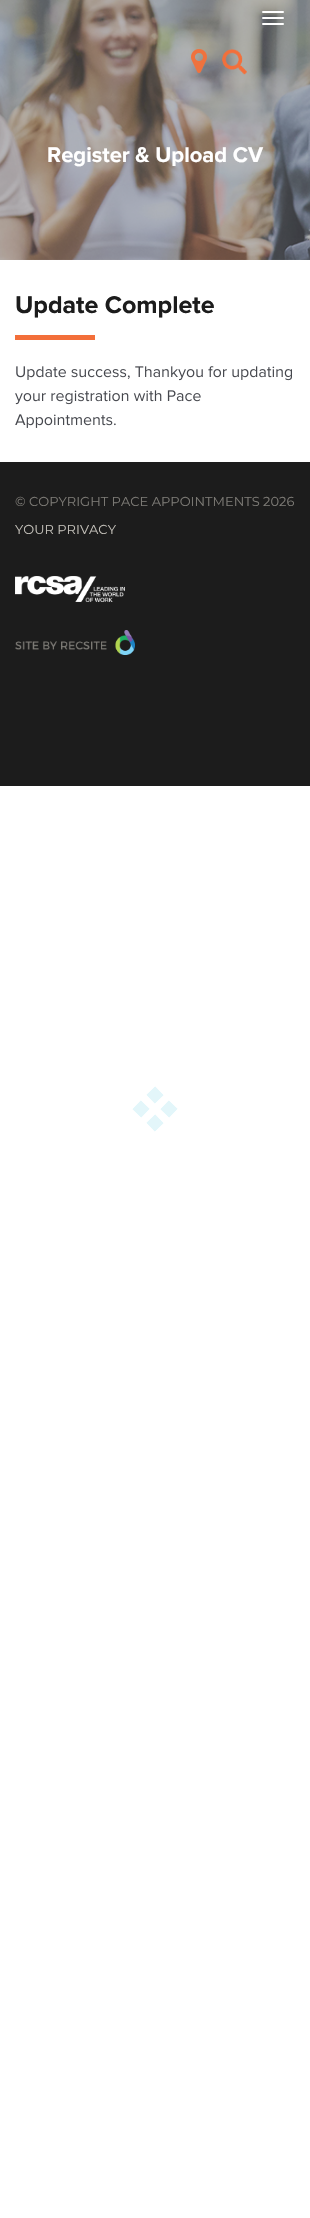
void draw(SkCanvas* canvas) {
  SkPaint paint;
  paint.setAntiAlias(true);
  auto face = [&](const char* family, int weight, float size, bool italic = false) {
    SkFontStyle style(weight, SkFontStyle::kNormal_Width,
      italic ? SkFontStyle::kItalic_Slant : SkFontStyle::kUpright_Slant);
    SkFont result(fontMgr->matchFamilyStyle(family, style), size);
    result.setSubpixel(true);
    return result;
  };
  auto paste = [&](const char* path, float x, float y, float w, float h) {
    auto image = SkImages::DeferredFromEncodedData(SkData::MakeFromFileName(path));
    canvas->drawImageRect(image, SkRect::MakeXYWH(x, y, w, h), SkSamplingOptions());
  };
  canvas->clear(0xffffffff);
  paste("img/3.png", 0, 0, 310, 260);
  paint.setColor(0xffffffff);
  canvas->drawRoundRect(SkRect::MakeXYWH(262, 11, 22, 2), 1, 1, paint);
  canvas->drawRoundRect(SkRect::MakeXYWH(262, 17, 22, 2), 1, 1, paint);
  canvas->drawRoundRect(SkRect::MakeXYWH(262, 23, 22, 2), 1, 1, paint);
  paste("img/1.png", 191, 49, 16, 24);
  paste("img/2.png", 222, 49, 25, 26);
  paint.setColor(0xfff36f3a);
  canvas->drawRect(SkRect::MakeXYWH(15, 335, 80, 5), paint);
  paste("img/4.png", 16, 366, 276, 15);
  paste("img/5.png", 15, 390, 186, 15);
  paste("img/6.png", 15, 414, 101, 14);
  paint.setColor(0xff1c1c1c);
  canvas->drawRect(SkRect::MakeXYWH(0, 462, 310, 324), paint);
  paste("img/7.png", 15, 576, 110, 26);
  paste("img/8.png", 15, 630, 120, 25);
  paste("img/9.png", 132, 1086, 46, 46);
  auto f0 = face("Proxima Nova", 700, 22);
  paint.setColor(0xffffffff);
  canvas->drawString("Register & Upload CV", 47, 162, f0, paint);
  auto f1 = face("Proxima Nova", 700, 25);
  paint.setColor(0xff1c1c1c);
  canvas->drawString("Update Complete", 15, 313, f1, paint);
  auto f2 = face("Montserrat", 400, 13);
  paint.setColor(0xff7c7a75);
  canvas->drawString("© COPYRIGHT PACE APPOINTMENTS 2026", 15, 506, f2, paint);
  paint.setColor(0xffc2bfb8);
  canvas->drawString("YOUR PRIVACY", 15, 534, f2, paint);
}
